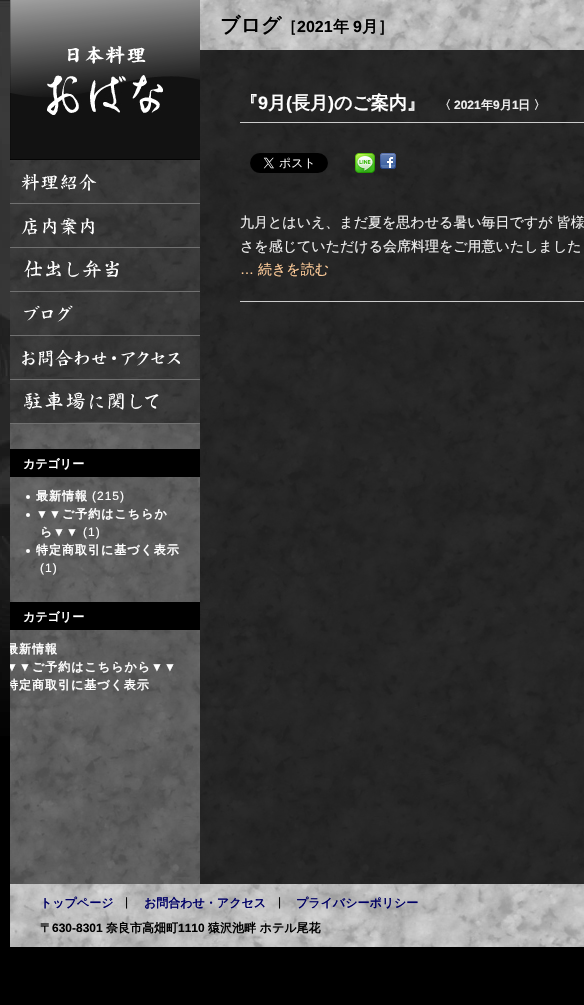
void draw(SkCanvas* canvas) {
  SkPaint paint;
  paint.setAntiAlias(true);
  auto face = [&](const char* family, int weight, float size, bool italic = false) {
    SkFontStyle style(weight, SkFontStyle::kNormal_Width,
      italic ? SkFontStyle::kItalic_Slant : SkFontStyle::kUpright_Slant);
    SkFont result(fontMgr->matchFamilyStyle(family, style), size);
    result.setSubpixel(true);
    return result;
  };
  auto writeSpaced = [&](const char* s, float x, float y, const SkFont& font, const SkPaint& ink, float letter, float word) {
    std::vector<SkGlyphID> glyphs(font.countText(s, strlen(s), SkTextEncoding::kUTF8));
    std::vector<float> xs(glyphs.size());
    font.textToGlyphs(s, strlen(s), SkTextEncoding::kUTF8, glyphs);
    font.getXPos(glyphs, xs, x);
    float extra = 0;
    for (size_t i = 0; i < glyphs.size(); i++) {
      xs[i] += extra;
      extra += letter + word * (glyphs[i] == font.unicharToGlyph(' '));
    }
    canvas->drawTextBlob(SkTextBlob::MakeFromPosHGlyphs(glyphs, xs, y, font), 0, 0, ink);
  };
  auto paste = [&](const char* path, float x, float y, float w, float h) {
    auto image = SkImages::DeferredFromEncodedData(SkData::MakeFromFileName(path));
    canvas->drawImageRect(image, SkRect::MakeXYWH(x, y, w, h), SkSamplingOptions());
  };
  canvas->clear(0xff000000);
  paste("img/1.png", 0, 0, 10, 736);
  paste("img/2.png", 200, 50, 384, 834);
  paste("img/3.png", 200, 0, 384, 50);
  paint.setColor(0xffcccccc);
  canvas->drawRect(SkRect::MakeXYWH(240, 122, 344, 1), paint);
  canvas->drawRect(SkRect::MakeXYWH(240, 301, 344, 1), paint);
  paste("img/4.png", 250, 153, 78, 20);
  paste("img/5.png", 355, 153, 20, 20);
  paste("img/6.png", 380, 153, 16, 16);
  paste("img/7.png", 10, 424, 190, 460);
  paste("img/8.png", 10, 0, 190, 160);
  paste("img/9.png", 10, 160, 190, 44);
  paste("img/10.png", 10, 204, 190, 44);
  paste("img/11.png", 10, 248, 190, 44);
  paste("img/12.png", 10, 292, 190, 44);
  paste("img/13.png", 10, 336, 190, 44);
  paste("img/14.png", 10, 380, 190, 44);
  paint.setColor(0xff000000);
  canvas->drawRect(SkRect::MakeXYWH(10, 449, 190, 28), paint);
  paint.setColor(0xffffffff);
  canvas->drawCircle(28, 497, 2, paint);
  canvas->drawCircle(28, 515, 2, paint);
  canvas->drawCircle(28, 551, 2, paint);
  paint.setColor(0xff000000);
  canvas->drawRect(SkRect::MakeXYWH(10, 602, 190, 28), paint);
  paste("img/15.png", 10, 884, 574, 63);
  auto f0 = face("WenQuanYi Zen Hei", 700, 20);
  canvas->drawString("ブログ", 220, 32, f0, paint);
  auto f1 = face("WenQuanYi Zen Hei", 700, 16);
  canvas->drawString("［", 281, 32, f1, paint);
  auto f2 = face("Liberation Sans", 700, 16);
  canvas->drawString("2021", 297, 32, f2, paint);
  canvas->drawString("年", 333, 32, f1, paint);
  canvas->drawString("9", 353, 32, f2, paint);
  canvas->drawString("月］", 362, 32, f1, paint);
  auto f3 = face("WenQuanYi Zen Hei", 700, 18);
  paint.setColor(0xffffffff);
  canvas->drawString("『", 240, 109, f3, paint);
  auto f4 = face("Liberation Sans", 700, 18);
  canvas->drawString("9", 258, 109, f4, paint);
  canvas->drawString("月", 268, 109, f3, paint);
  canvas->drawString("(", 286, 109, f4, paint);
  canvas->drawString("長月", 292, 109, f3, paint);
  canvas->drawString(")", 328, 109, f4, paint);
  canvas->drawString("のご案内』", 334, 109, f3, paint);
  auto f5 = face("WenQuanYi Zen Hei", 700, 12);
  paint.setColor(0xffeeeeee);
  canvas->drawString("〈", 439, 109, f5, paint);
  auto f6 = face("Liberation Sans", 700, 12);
  canvas->drawString("2021", 454, 109, f6, paint);
  canvas->drawString("年", 481, 109, f5, paint);
  canvas->drawString("9", 493, 109, f6, paint);
  canvas->drawString("月", 500, 109, f5, paint);
  canvas->drawString("1", 512, 109, f6, paint);
  canvas->drawString("日 〉", 518, 109, f5, paint);
  auto f7 = face("WenQuanYi Zen Hei", 500, 14);
  canvas->drawString("九月とはいえ、まだ夏を思わせる暑い毎日ですが 皆様", 240, 227, f7, paint);
  canvas->drawString("さを感じていただける会席料理をご用意いたしました", 240, 251, f7, paint);
  auto f8 = face("Liberation Sans", 400, 14);
  paint.setColor(0xffffcc99);
  canvas->drawString("…", 240, 274, f8, paint);
  canvas->drawString("続きを読む", 258, 274, f7, paint);
  paint.setColor(0xffffffff);
  canvas->drawString("カテゴリー", 23, 468, f5, paint);
  writeSpaced("最新情報", 36, 500, f5, paint, 1, 0);
  auto f9 = face("Liberation Sans", 400, 12);
  writeSpaced("(215)", 92, 500, f9, paint, 1, 0);
  writeSpaced("▼▼", 36, 518, f6, paint, 1, 0);
  writeSpaced("ご予約はこちらか", 62, 518, f5, paint, 1, 0);
  writeSpaced("ら", 40, 536, f5, paint, 1, 0);
  writeSpaced("▼▼", 53, 536, f6, paint, 1, 0);
  writeSpaced("(1)", 83, 536, f9, paint, 1, 0);
  writeSpaced("特定商取引に基づく表示", 36, 554, f5, paint, 1, 0);
  writeSpaced("(1)", 40, 572, f9, paint, 1, 0);
  canvas->drawString("カテゴリー", 23, 621, f5, paint);
  canvas->save();
  canvas->clipRect(SkRect::MakeXYWH(10, 0, 190, 894));
  writeSpaced("最新情報", 6, 653, f5, paint, 1, 0);
  writeSpaced("▼▼", 6, 671, f6, paint, 1, 0);
  canvas->restore();
  writeSpaced("ご予約はこちらから", 32, 671, f5, paint, 1, 0);
  writeSpaced("▼▼", 151, 671, f6, paint, 1, 0);
  canvas->save();
  canvas->clipRect(SkRect::MakeXYWH(10, 0, 190, 894));
  writeSpaced("特定商取引に基づく表示", 6, 689, f5, paint, 1, 0);
  canvas->restore();
  paint.setColor(0xff000066);
  canvas->drawString("トップページ", 40, 907, f5, paint);
  paint.setColor(0xff000000);
  canvas->drawString("|", 125, 906, f9, paint);
  paint.setColor(0xff000066);
  canvas->drawString("お問合わせ・アクセス", 144, 907, f5, paint);
  paint.setColor(0xff000000);
  canvas->drawString("|", 278, 906, f9, paint);
  paint.setColor(0xff000066);
  canvas->drawString("プライバシーポリシー", 296, 907, f5, paint);
  paint.setColor(0xff000000);
  canvas->drawString("〒", 40, 932, f5, paint);
  canvas->drawString("630-8301", 52, 932, f6, paint);
  canvas->drawString("奈良市高畑町", 106, 932, f5, paint);
  canvas->drawString("1110", 178, 932, f6, paint);
  canvas->drawString("猿沢池畔 ホテル尾花", 208, 932, f5, paint);
}
